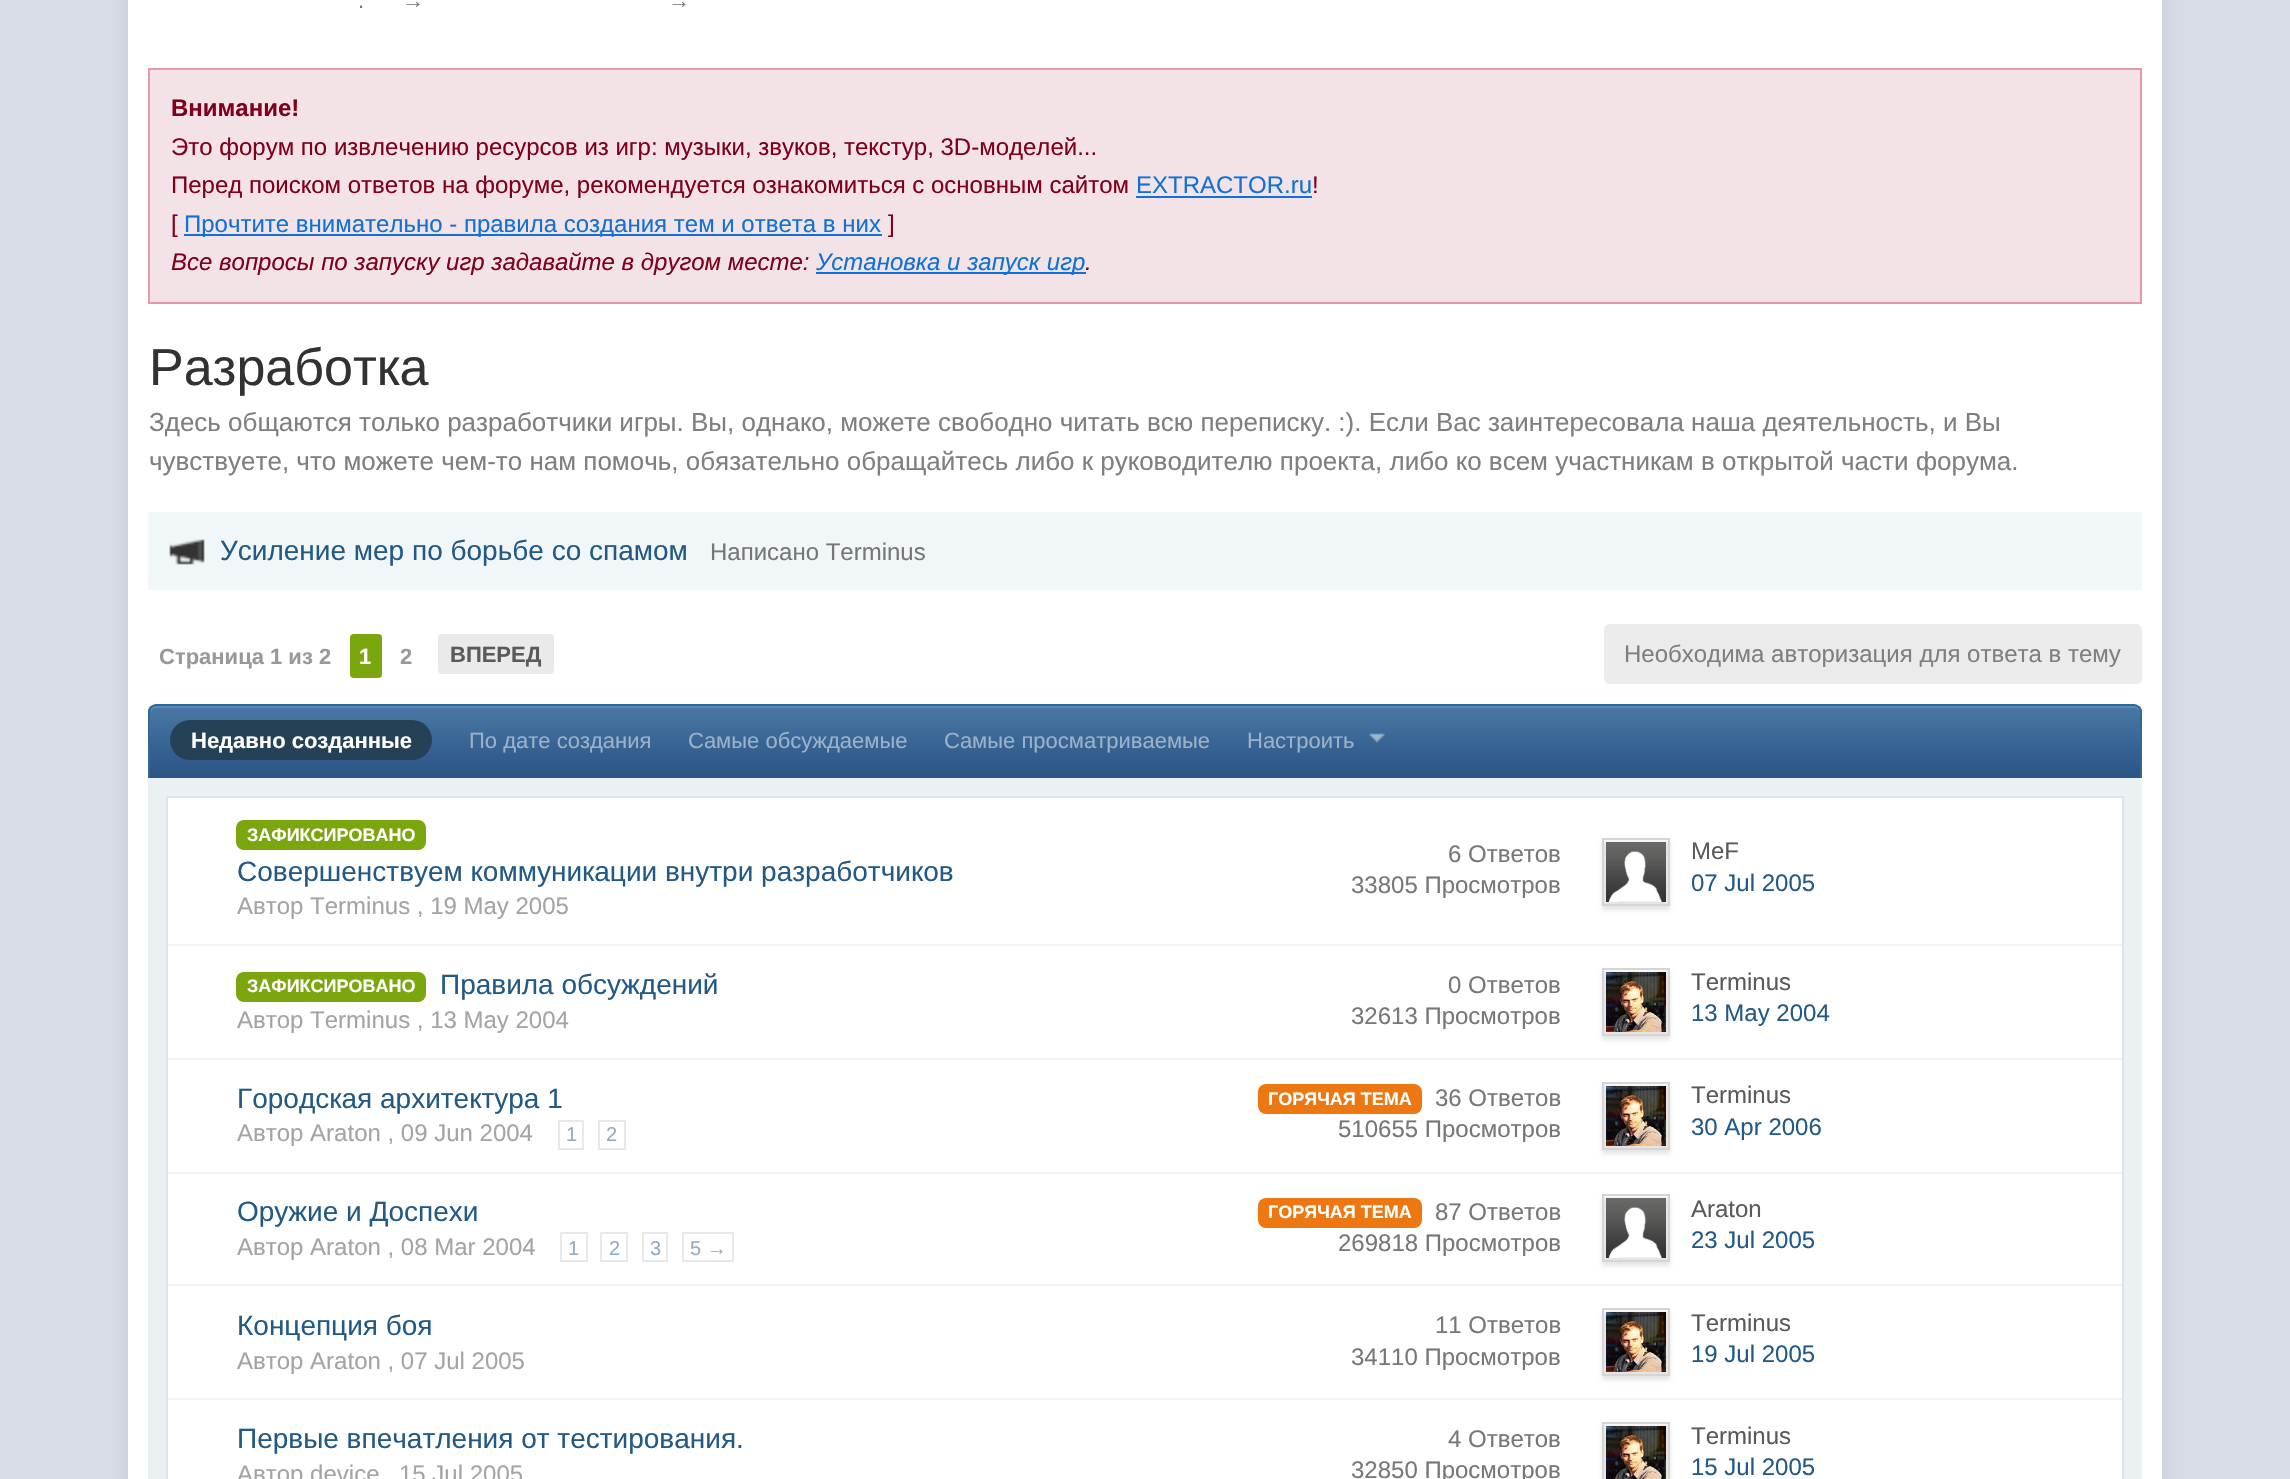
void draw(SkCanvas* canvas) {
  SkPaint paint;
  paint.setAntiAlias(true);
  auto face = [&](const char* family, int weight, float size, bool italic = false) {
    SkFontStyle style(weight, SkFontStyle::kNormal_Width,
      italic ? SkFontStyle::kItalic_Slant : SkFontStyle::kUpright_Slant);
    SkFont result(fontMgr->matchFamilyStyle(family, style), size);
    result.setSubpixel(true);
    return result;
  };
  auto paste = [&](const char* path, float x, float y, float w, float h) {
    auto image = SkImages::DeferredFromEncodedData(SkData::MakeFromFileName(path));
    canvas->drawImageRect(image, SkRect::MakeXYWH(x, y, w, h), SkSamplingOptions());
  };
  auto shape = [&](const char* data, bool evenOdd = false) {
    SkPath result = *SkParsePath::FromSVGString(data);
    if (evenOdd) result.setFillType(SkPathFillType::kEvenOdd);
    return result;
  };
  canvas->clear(0xffd8dde8);
  paint.setColor(0x1a000000);
  paint.setMaskFilter(SkMaskFilter::MakeBlur(kNormal_SkBlurStyle, 9));
  canvas->drawRect(SkRect::MakeXYWH(128, -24, 2034, 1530), paint);
  paint.setMaskFilter(nullptr);
  paint.setColor(0xffffffff);
  canvas->drawRect(SkRect::MakeXYWH(128, 0, 2034, 1479), paint);
  paint.setColor(0xfff3e3e6);
  canvas->drawRect(SkRect::MakeXYWH(149, 69, 1992, 234), paint);
  paint.setStroke(true);
  paint.setStrokeWidth(2);
  paint.setColor(0xffe599aa);
  canvas->drawRect(SkRect::MakeXYWH(149, 69, 1992, 234), paint);
  paint.setStroke(false);
  {
    const struct { float x, y, w, h; SkColor color; } items[] = {
      {1136, 196, 176, 2, 0xff0f72da},
      {184, 234, 698, 2, 0xff0f72da},
      {816, 272, 270, 2, 0xff0f72da},
      {148, 512, 1994, 78, 0xfff1f6f9},
    };
    for (auto [x, y, w, h, color] : items) {
      paint.setColor(color);
      canvas->drawRect(SkRect::MakeXYWH(x, y, w, h), paint);
    }
  }
  paste("img/1.png", 169, 539, 36, 26);
  paint.setColor(0xff7ba60d);
  canvas->drawRoundRect(SkRect::MakeXYWH(350, 634, 32, 44), 4, 4, paint);
  paint.setColor(0xffeaeaea);
  canvas->drawRoundRect(SkRect::MakeXYWH(438, 634, 116, 40), 4, 4, paint);
  paint.setColor(0xffebebeb);
  canvas->drawRoundRect(SkRect::MakeXYWH(1604, 624, 538, 60), 6, 6, paint);
  paint.setColor(0xff2c5687);
  canvas->drawPath(shape("M156 706H2134C2137.5 706 2140 708.5 2140 712V778H150V712C150 708.5 152.5 706 156 706Z"), paint);
  paste("img/2.png", 148, 706, 1994, 70);
  paint.setColor(0xff528cbc);
  canvas->drawPath(shape("M156 708H2134C2137 708 2140 711 2140 714C2140 710 2139 706 2134 706H156C151 706 150 710 150 714C150 711 153 708 156 708Z"), paint);
  paint.setColor(0xff316897);
  canvas->drawPath(shape("M156 704H2134C2138 704 2142 708 2142 712V778H148V712C148 708 152 704 156 704ZM156 706H2134C2137 706 2140 709 2140 712V778H150V712C150 709 153 706 156 706Z", true), paint);
  paint.setColor(0xff244156);
  canvas->drawRoundRect(SkRect::MakeXYWH(170, 720, 262, 40), 20, 20, paint);
  paste("img/3.png", 1369, 733, 16, 10);
  paint.setColor(0xffebf0f3);
  canvas->drawRect(SkRect::MakeXYWH(148, 778, 1994, 701), paint);
  paint.setColor(0xffffffff);
  canvas->drawRect(SkRect::MakeXYWH(167, 797, 1956, 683), paint);
  paint.setStroke(true);
  paint.setColor(0xffdbe4ef);
  canvas->drawRect(SkRect::MakeXYWH(167, 797, 1956, 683), paint);
  paint.setStroke(false);
  paint.setColor(0xff7ba60d);
  canvas->drawRoundRect(SkRect::MakeXYWH(236, 820, 190, 30), 8, 8, paint);
  paint.setColor(0xfff3f3f3);
  canvas->drawRect(SkRect::MakeXYWH(168, 944, 1954, 2), paint);
  paint.setColor(0x1a000000);
  paint.setMaskFilter(SkMaskFilter::MakeBlur(kNormal_SkBlurStyle, 2));
  canvas->drawRect(SkRect::MakeXYWH(1602, 842, 68, 68), paint);
  paint.setMaskFilter(nullptr);
  paint.setStroke(true);
  paint.setColor(0xffd5d5d5);
  canvas->drawRect(SkRect::MakeXYWH(1603, 839, 66, 66), paint);
  paste("img/4.png", 1606, 842, 60, 60);
  paint.setStroke(false);
  paint.setColor(0xff7ba60d);
  canvas->drawRoundRect(SkRect::MakeXYWH(236, 972, 190, 30), 8, 8, paint);
  paint.setColor(0xfff3f3f3);
  canvas->drawRect(SkRect::MakeXYWH(168, 1058, 1954, 2), paint);
  paint.setColor(0x1a000000);
  paint.setMaskFilter(SkMaskFilter::MakeBlur(kNormal_SkBlurStyle, 2));
  canvas->drawRect(SkRect::MakeXYWH(1602, 972, 68, 68), paint);
  paint.setMaskFilter(nullptr);
  paint.setStroke(true);
  paint.setColor(0xffd5d5d5);
  canvas->drawRect(SkRect::MakeXYWH(1603, 969, 66, 66), paint);
  paste("img/5.png", 1606, 972, 60, 60);
  paint.setColor(0xffe9e9e9);
  canvas->drawRect(SkRect::MakeXYWH(559, 1121, 24, 28), paint);
  canvas->drawRect(SkRect::MakeXYWH(599, 1121, 26, 28), paint);
  paint.setStroke(false);
  paint.setColor(0xffed7710);
  canvas->drawRoundRect(SkRect::MakeXYWH(1258, 1084, 164, 30), 8, 8, paint);
  paint.setColor(0xfff3f3f3);
  canvas->drawRect(SkRect::MakeXYWH(168, 1172, 1954, 2), paint);
  paint.setColor(0x1a000000);
  paint.setMaskFilter(SkMaskFilter::MakeBlur(kNormal_SkBlurStyle, 2));
  canvas->drawRect(SkRect::MakeXYWH(1602, 1086, 68, 68), paint);
  paint.setMaskFilter(nullptr);
  paint.setStroke(true);
  paint.setColor(0xffd5d5d5);
  canvas->drawRect(SkRect::MakeXYWH(1603, 1083, 66, 66), paint);
  paste("img/6.png", 1606, 1086, 60, 60);
  paint.setColor(0xffe9e9e9);
  canvas->drawRect(SkRect::MakeXYWH(561, 1233, 26, 28), paint);
  canvas->drawRect(SkRect::MakeXYWH(601, 1233, 26, 28), paint);
  canvas->drawRect(SkRect::MakeXYWH(643, 1233, 24, 28), paint);
  canvas->drawRect(SkRect::MakeXYWH(683, 1233, 50, 28), paint);
  paint.setStroke(false);
  paint.setColor(0xffed7710);
  canvas->drawRoundRect(SkRect::MakeXYWH(1258, 1198, 164, 30), 8, 8, paint);
  paint.setColor(0xfff3f3f3);
  canvas->drawRect(SkRect::MakeXYWH(168, 1284, 1954, 2), paint);
  paint.setColor(0x1a000000);
  paint.setMaskFilter(SkMaskFilter::MakeBlur(kNormal_SkBlurStyle, 2));
  canvas->drawRect(SkRect::MakeXYWH(1602, 1198, 68, 68), paint);
  paint.setMaskFilter(nullptr);
  paint.setStroke(true);
  paint.setColor(0xffd5d5d5);
  canvas->drawRect(SkRect::MakeXYWH(1603, 1195, 66, 66), paint);
  paste("img/4.png", 1606, 1198, 60, 60);
  paint.setStroke(false);
  paint.setColor(0xfff3f3f3);
  canvas->drawRect(SkRect::MakeXYWH(168, 1398, 1954, 2), paint);
  paint.setColor(0x1a000000);
  paint.setMaskFilter(SkMaskFilter::MakeBlur(kNormal_SkBlurStyle, 2));
  canvas->drawRect(SkRect::MakeXYWH(1602, 1312, 68, 68), paint);
  paint.setMaskFilter(nullptr);
  paint.setStroke(true);
  paint.setColor(0xffd5d5d5);
  canvas->drawRect(SkRect::MakeXYWH(1603, 1309, 66, 66), paint);
  paste("img/6.png", 1606, 1312, 60, 60);
  paint.setStroke(false);
  paint.setColor(0x1a000000);
  paint.setMaskFilter(SkMaskFilter::MakeBlur(kNormal_SkBlurStyle, 2));
  canvas->drawRect(SkRect::MakeXYWH(1602, 1426, 68, 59), paint);
  paint.setMaskFilter(nullptr);
  paint.setStroke(true);
  paint.setColor(0xffd5d5d5);
  canvas->drawRect(SkRect::MakeXYWH(1603, 1423, 66, 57), paint);
  paste("img/7.png", 1606, 1426, 60, 53);
  auto f0 = face("Liberation Sans", 400, 22);
  paint.setStroke(false);
  paint.setColor(0xff777777);
  {
    const struct { const char* s; float x, y; } items[] = {
      {".", 358, 8},
      {"→", 402, 8},
      {"→", 668, 8},
    };
    for (auto [s, x, y] : items) {
      canvas->drawString(s, x, y, f0, paint);
    }
  }
  auto f1 = face("Liberation Sans", 700, 24);
  paint.setColor(0xff80001c);
  canvas->drawString("Внимание!", 171, 116, f1, paint);
  auto f2 = face("Liberation Sans", 400, 24);
  canvas->drawString("Это форум по извлечению ресурсов из игр: музыки, звуков, текстур, 3D-моделей...", 171, 155, f2, paint);
  canvas->drawString("Перед поиском ответов на форуме, рекомендуется ознакомиться с основным сайтом", 171, 193, f2, paint);
  paint.setColor(0xff0f72da);
  canvas->drawString("EXTRACTOR.ru", 1136, 193, f2, paint);
  paint.setColor(0xff80001c);
  canvas->drawString("!", 1312, 193, f2, paint);
  canvas->drawString("[", 171, 232, f2, paint);
  paint.setColor(0xff0f72da);
  canvas->drawString("Прочтите внимательно - правила создания тем и ответа в них", 184, 232, f2, paint);
  paint.setColor(0xff80001c);
  canvas->drawString("]", 888, 232, f2, paint);
  auto f3 = face("Liberation Sans", 400, 24, true);
  canvas->drawString("Все вопросы по запуску игр задавайте в другом месте:", 171, 270, f3, paint);
  paint.setColor(0xff0f72da);
  canvas->drawString("Установка и запуск игр", 816, 270, f3, paint);
  paint.setColor(0xff80001c);
  canvas->drawString(".", 1085, 270, f3, paint);
  auto f4 = face("Liberation Sans", 400, 52);
  paint.setColor(0xff323232);
  canvas->drawString("Разработка", 149, 385, f4, paint);
  auto f5 = face("Liberation Sans", 400, 26);
  paint.setColor(0xff7f7f7f);
  canvas->drawString("Здесь общаются только разработчики игры. Вы, однако, можете свободно читать всю переписку. :). Если Вас заинтересовала наша деятельность, и Вы", 149, 431, f5, paint);
  canvas->drawString("чувствуете, что можете чем-то нам помочь, обязательно обращайтесь либо к руководителю проекта, либо ко всем участникам в открытой части форума.", 149, 470, f5, paint);
  auto f6 = face("Liberation Sans", 400, 28);
  paint.setColor(0xff225985);
  canvas->drawString("Усиление мер по борьбе со спамом", 220, 560, f6, paint);
  paint.setColor(0xff777777);
  canvas->drawString("Написано Terminus", 710, 560, f2, paint);
  auto f7 = face("Liberation Sans", 700, 22);
  paint.setColor(0xff999999);
  canvas->drawString("Страница 1 из 2", 159, 664, f7, paint);
  paint.setColor(0xffffffff);
  canvas->drawString("1", 359, 664, f7, paint);
  paint.setColor(0xff999999);
  canvas->drawString("2", 400, 664, f7, paint);
  paint.setColor(0xff5a5a5a);
  canvas->drawString("ВПЕРЕД", 450, 662, f7, paint);
  paint.setColor(0xff7f7f7f);
  canvas->drawString("Необходима авторизация для ответа в тему", 1624, 662, f2, paint);
  paint.setColor(0xffffffff);
  canvas->drawString("Недавно созданные", 191, 748, f7, paint);
  paint.setColor(0xff9cb2ca);
  {
    const struct { const char* s; float x, y; } items[] = {
      {"По дате создания", 469, 748},
      {"Самые обсуждаемые", 688, 748},
      {"Самые просматриваемые", 944, 748},
      {"Настроить", 1247, 748},
    };
    for (auto [s, x, y] : items) {
      canvas->drawString(s, x, y, f0, paint);
    }
  }
  auto f8 = face("Liberation Sans", 700, 18);
  paint.setColor(0xffffffff);
  canvas->drawString("ЗАФИКСИРОВАНО", 247, 841, f8, paint);
  paint.setColor(0xff225985);
  canvas->drawString("Совершенствуем коммуникации внутри разработчиков", 237, 881, f6, paint);
  paint.setColor(0xffa4a4a4);
  canvas->drawString("Автор Terminus , 19 May 2005", 237, 914, f2, paint);
  paint.setColor(0xff777777);
  canvas->drawString("6 Ответов", 1448, 862, f2, paint);
  canvas->drawString("33805 Просмотров", 1351, 893, f2, paint);
  paint.setColor(0xff5a5a5a);
  canvas->drawString("MeF", 1691, 859, f2, paint);
  paint.setColor(0xff225985);
  canvas->drawString("07 Jul 2005", 1691, 891, f2, paint);
  paint.setColor(0xffffffff);
  canvas->drawString("ЗАФИКСИРОВАНО", 247, 992, f8, paint);
  paint.setColor(0xff225985);
  canvas->drawString("Правила обсуждений", 440, 994, f6, paint);
  paint.setColor(0xffa4a4a4);
  canvas->drawString("Автор Terminus , 13 May 2004", 237, 1028, f2, paint);
  paint.setColor(0xff777777);
  canvas->drawString("0 Ответов", 1448, 993, f2, paint);
  canvas->drawString("32613 Просмотров", 1351, 1024, f2, paint);
  paint.setColor(0xff5a5a5a);
  canvas->drawString("Terminus", 1691, 990, f2, paint);
  paint.setColor(0xff225985);
  canvas->drawString("13 May 2004", 1691, 1021, f2, paint);
  canvas->drawString("Городская архитектура 1", 237, 1108, f6, paint);
  paint.setColor(0xffa4a4a4);
  canvas->drawString("Автор Araton , 09 Jun 2004", 237, 1141, f2, paint);
  auto f9 = face("Liberation Sans", 400, 20);
  paint.setColor(0xff91acc2);
  canvas->drawString("1", 566, 1141, f9, paint);
  canvas->drawString("2", 606, 1141, f9, paint);
  paint.setColor(0xffffffff);
  canvas->drawString("ГОРЯЧАЯ ТЕМА", 1268, 1105, f8, paint);
  paint.setColor(0xff777777);
  canvas->drawString("36 Ответов", 1435, 1106, f2, paint);
  canvas->drawString("510655 Просмотров", 1338, 1137, f2, paint);
  paint.setColor(0xff5a5a5a);
  canvas->drawString("Terminus", 1691, 1103, f2, paint);
  paint.setColor(0xff225985);
  canvas->drawString("30 Apr 2006", 1691, 1135, f2, paint);
  canvas->drawString("Оружие и Доспехи", 237, 1221, f6, paint);
  paint.setColor(0xffa4a4a4);
  canvas->drawString("Автор Araton , 08 Mar 2004", 237, 1255, f2, paint);
  paint.setColor(0xff91acc2);
  {
    const struct { const char* s; float x, y; } items[] = {
      {"1", 568, 1255},
      {"2", 609, 1255},
      {"3", 650, 1255},
      {"5 →", 690, 1255},
    };
    for (auto [s, x, y] : items) {
      canvas->drawString(s, x, y, f9, paint);
    }
  }
  paint.setColor(0xffffffff);
  canvas->drawString("ГОРЯЧАЯ ТЕМА", 1268, 1218, f8, paint);
  paint.setColor(0xff777777);
  canvas->drawString("87 Ответов", 1435, 1220, f2, paint);
  canvas->drawString("269818 Просмотров", 1338, 1251, f2, paint);
  paint.setColor(0xff5a5a5a);
  canvas->drawString("Araton", 1691, 1217, f2, paint);
  paint.setColor(0xff225985);
  canvas->drawString("23 Jul 2005", 1691, 1248, f2, paint);
  canvas->drawString("Концепция боя", 237, 1335, f6, paint);
  paint.setColor(0xffa4a4a4);
  canvas->drawString("Автор Araton , 07 Jul 2005", 237, 1369, f2, paint);
  paint.setColor(0xff777777);
  canvas->drawString("11 Ответов", 1435, 1333, f2, paint);
  canvas->drawString("34110 Просмотров", 1351, 1365, f2, paint);
  paint.setColor(0xff5a5a5a);
  canvas->drawString("Terminus", 1691, 1331, f2, paint);
  paint.setColor(0xff225985);
  canvas->drawString("19 Jul 2005", 1691, 1362, f2, paint);
  canvas->drawString("Первые впечатления от тестирования.", 237, 1448, f6, paint);
  paint.setColor(0xffa4a4a4);
  canvas->drawString("Автор device", 237, 1482, f2, paint);
  canvas->drawString("15 Jul 2005", 399, 1482, f2, paint);
  paint.setColor(0xff777777);
  canvas->drawString("4 Ответов", 1448, 1447, f2, paint);
  canvas->drawString("32850 Просмотров", 1351, 1478, f2, paint);
  paint.setColor(0xff5a5a5a);
  canvas->drawString("Terminus", 1691, 1444, f2, paint);
  paint.setColor(0xff225985);
  canvas->drawString("15 Jul 2005", 1691, 1475, f2, paint);
}
